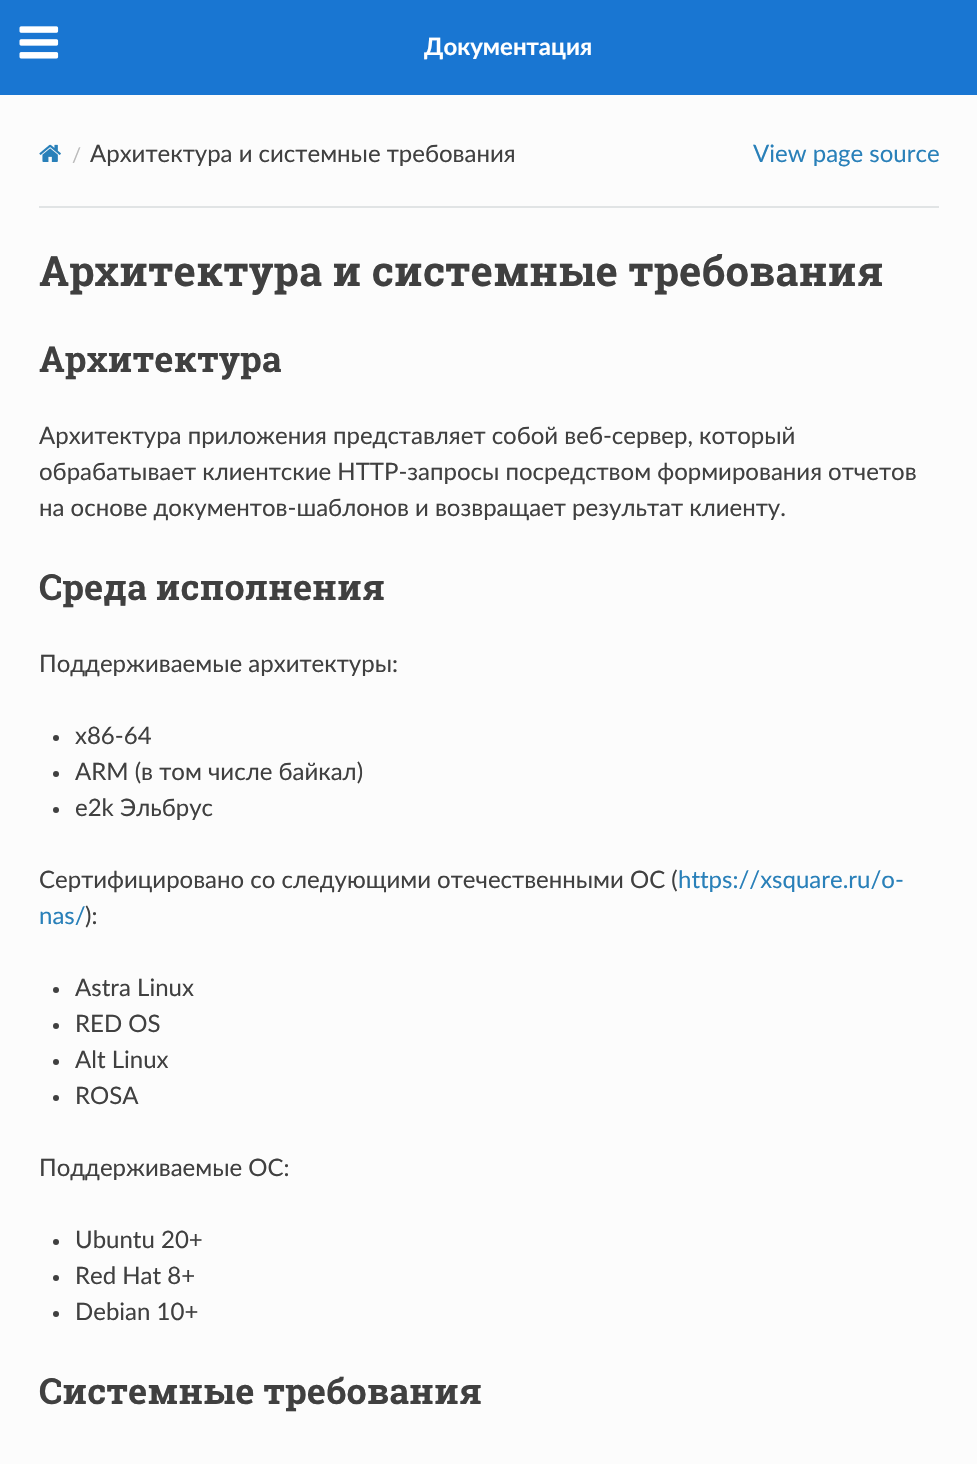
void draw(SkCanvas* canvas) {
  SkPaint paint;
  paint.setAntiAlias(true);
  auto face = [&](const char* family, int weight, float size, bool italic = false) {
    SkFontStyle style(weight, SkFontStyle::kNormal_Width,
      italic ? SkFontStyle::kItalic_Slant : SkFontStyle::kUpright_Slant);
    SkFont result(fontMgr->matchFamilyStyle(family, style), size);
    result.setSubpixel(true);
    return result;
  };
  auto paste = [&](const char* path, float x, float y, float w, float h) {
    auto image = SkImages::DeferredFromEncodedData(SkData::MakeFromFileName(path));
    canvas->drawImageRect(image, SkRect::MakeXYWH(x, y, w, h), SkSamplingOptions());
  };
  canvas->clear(0xfffcfcfc);
  paint.setColor(0xff1976d2);
  canvas->drawRect(SkRect::MakeXYWH(0, 0, 977, 95), paint);
  paste("img/1.png", 19, 26, 40, 33);
  paste("img/2.png", 39, 144, 22, 18);
  paint.setColor(0xffe1e4e5);
  canvas->drawRect(SkRect::MakeXYWH(39, 206, 900, 2), paint);
  paint.setColor(0xff404040);
  canvas->drawCircle(56, 738, 3, paint);
  canvas->drawCircle(56, 774, 3, paint);
  canvas->drawCircle(56, 810, 3, paint);
  canvas->drawCircle(56, 990, 3, paint);
  canvas->drawCircle(56, 1026, 3, paint);
  canvas->drawCircle(56, 1062, 3, paint);
  canvas->drawCircle(56, 1098, 3, paint);
  canvas->drawCircle(56, 1242, 3, paint);
  canvas->drawCircle(56, 1278, 3, paint);
  canvas->drawCircle(56, 1314, 3, paint);
  auto f0 = face("Lato", 700, 24);
  paint.setColor(0xffffffff);
  canvas->drawString("Документация", 424, 55, f0, paint);
  auto f1 = face("Lato", 400, 20);
  paint.setColor(0xffbbbbbb);
  canvas->drawString("/", 72, 162, f1, paint);
  auto f2 = face("Lato", 400, 24);
  paint.setColor(0xff404040);
  canvas->drawString("Архитектура и системные требования", 90, 162, f2, paint);
  paint.setColor(0xff2980b9);
  canvas->drawString("View page source", 753, 162, f2, paint);
  auto f3 = face("Roboto Slab", 700, 42);
  paint.setColor(0xff404040);
  canvas->drawString("Архитектура и системные требования", 39, 286, f3, paint);
  auto f4 = face("Roboto Slab", 700, 36);
  canvas->drawString("Архитектура", 39, 372, f4, paint);
  {
    const struct { const char* s; float x, y; } items[] = {
      {"Архитектура приложения представляет собой веб-сервер, который", 39, 444},
      {"обрабатывает клиентские HTTP-запросы посредством формирования отчетов", 39, 480},
      {"на основе документов-шаблонов и возвращает результат клиенту.", 39, 516},
    };
    for (auto [s, x, y] : items) {
      canvas->drawString(s, x, y, f2, paint);
    }
  }
  canvas->drawString("Среда исполнения", 39, 600, f4, paint);
  {
    const struct { const char* s; float x, y; } items[] = {
      {"Поддерживаемые архитектуры:", 39, 672},
      {"x86-64", 75, 744},
      {"ARM (в том числе байкал)", 75, 780},
      {"e2k Эльбрус", 75, 816},
      {"Сертифицировано со следующими отечественными ОС (", 39, 888},
    };
    for (auto [s, x, y] : items) {
      canvas->drawString(s, x, y, f2, paint);
    }
  }
  paint.setColor(0xff2980b9);
  canvas->drawString("https://xsquare.ru/o-", 678, 888, f2, paint);
  canvas->drawString("nas/", 39, 924, f2, paint);
  paint.setColor(0xff404040);
  {
    const struct { const char* s; float x, y; } items[] = {
      {"):", 85, 924},
      {"Astra Linux", 75, 996},
      {"RED OS", 75, 1032},
      {"Alt Linux", 75, 1068},
      {"ROSA", 75, 1104},
      {"Поддерживаемые ОС:", 39, 1176},
      {"Ubuntu 20+", 75, 1248},
      {"Red Hat 8+", 75, 1284},
      {"Debian 10+", 75, 1320},
    };
    for (auto [s, x, y] : items) {
      canvas->drawString(s, x, y, f2, paint);
    }
  }
  canvas->drawString("Системные требования", 39, 1404, f4, paint);
}
